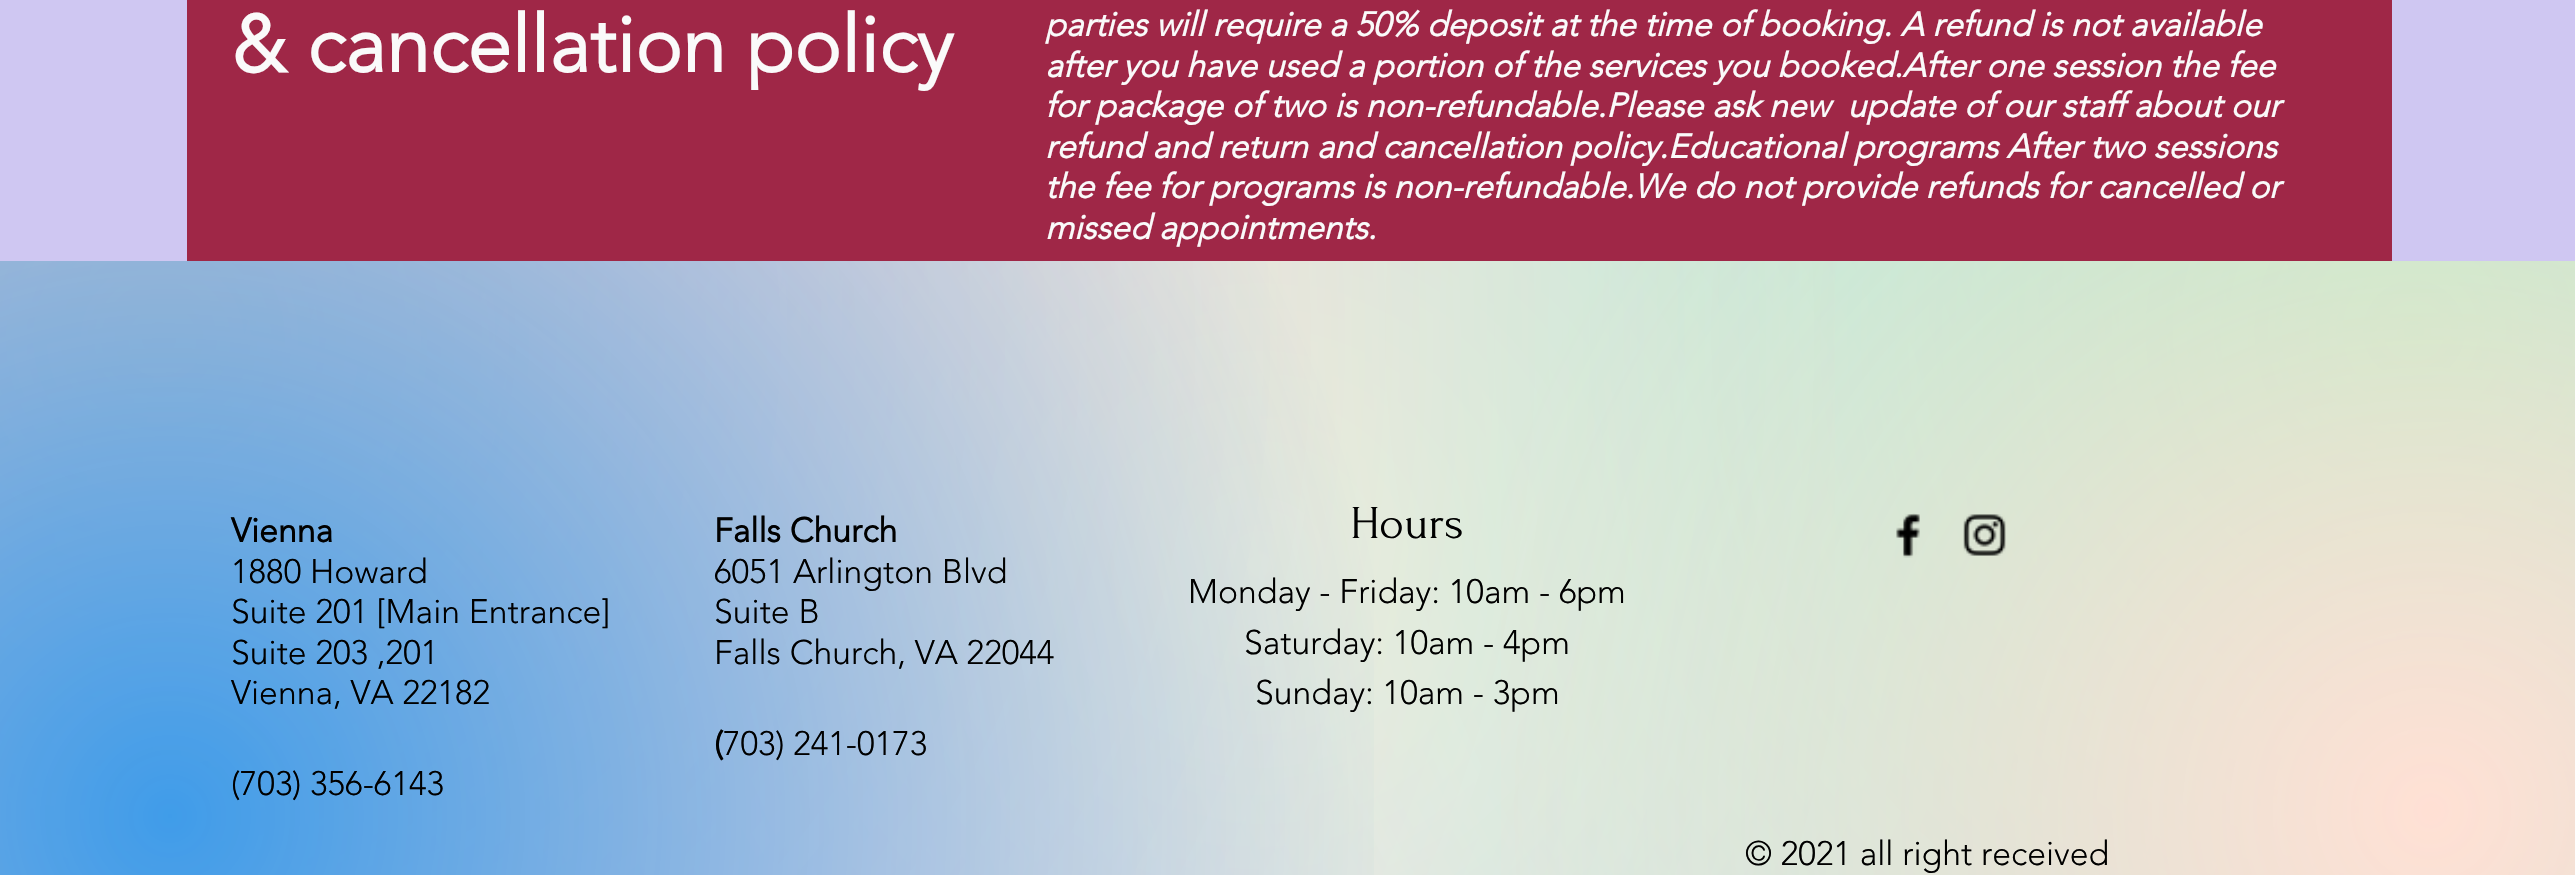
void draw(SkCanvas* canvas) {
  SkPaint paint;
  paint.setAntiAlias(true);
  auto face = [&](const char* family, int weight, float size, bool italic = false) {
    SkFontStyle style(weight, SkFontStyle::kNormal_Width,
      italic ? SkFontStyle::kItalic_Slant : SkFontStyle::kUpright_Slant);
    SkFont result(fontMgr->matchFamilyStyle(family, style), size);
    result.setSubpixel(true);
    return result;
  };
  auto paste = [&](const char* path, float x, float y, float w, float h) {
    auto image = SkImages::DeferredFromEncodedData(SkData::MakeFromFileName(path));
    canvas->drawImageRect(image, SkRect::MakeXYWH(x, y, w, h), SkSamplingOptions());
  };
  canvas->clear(0xffcfc7f2);
  paint.setColor(0xff9f2747);
  canvas->drawRect(SkRect::MakeXYWH(187, 0, 2205, 261), paint);
  {
    const SkColor colors[] = {0xffffffff, 0xffcdc3f5};
    const float stops[] = {0, 1};
    paint.setShader(SkGradientShader::MakeRadial({1260, 565}, 1352, colors, stops, 2, SkTileMode::kClamp));
    paint.setAlpha(255);
  }
  canvas->drawRect(SkRect::MakeXYWH(0, 261, 2575, 614), paint);
  {
    const SkColor colors[] = {0xffaeefc5, 0x00aeefc5};
    const float stops[] = {0, 0.7f};
    paint.setShader(SkGradientShader::MakeRadial({2414, 331}, 2474, colors, stops, 2, SkTileMode::kClamp));
    paint.setAlpha(255);
  }
  canvas->drawRect(SkRect::MakeXYWH(730, 261, 1845, 614), paint);
  {
    const SkColor colors[] = {0xfff8d1c2, 0x00f8d1c2};
    const float stops[] = {0, 0.7f};
    paint.setShader(SkGradientShader::MakeRadial({159, 339}, 2476, colors, stops, 2, SkTileMode::kClamp));
    paint.setAlpha(255);
  }
  canvas->drawRect(SkRect::MakeXYWH(0, 261, 1835, 614), paint);
  {
    const SkColor colors[] = {0xfc3d9be9, 0x003d9be9};
    const float stops[] = {0, 0.5f};
    paint.setShader(SkGradientShader::MakeRadial({170, 816}, 2470, colors, stops, 2, SkTileMode::kClamp));
    paint.setAlpha(255);
  }
  canvas->drawRect(SkRect::MakeXYWH(0, 261, 1374, 614), paint);
  {
    const SkColor colors[] = {0xffffe0d4, 0x00ffe0d4};
    const float stops[] = {0, 0.4f};
    paint.setShader(SkGradientShader::MakeRadial({2431, 811}, 2492, colors, stops, 2, SkTileMode::kClamp));
    paint.setAlpha(255);
  }
  canvas->drawRect(SkRect::MakeXYWH(1501, 261, 1074, 614), paint);
  paste("img/1.png", 1896, 513, 24, 45);
  paste("img/2.png", 1963, 514, 43, 42);
  auto f0 = face("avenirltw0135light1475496", 700, 78.75f);
  paint.setShader(nullptr);
  paint.setColor(0xfffafafa);
  canvas->drawString("& cancellation policy", 231, 72, f0, paint);
  auto f1 = face("avenirltw0135light1475496", 700, 33.75f, true);
  {
    const struct { const char* s; float x, y; } items[] = {
      {"parties will require a 50% deposit at the time of booking. A refund is not available", 1045, 36},
      {"after you have used a portion of the services you booked.After one session the fee", 1045, 77},
      {"for package of two is non-refundable.Please ask new  update of our staff about our", 1045, 117},
      {"refund and return and cancellation policy.Educational programs After two sessions", 1045, 158},
      {"the fee for programs is non-refundable.We do not provide refunds for cancelled or", 1045, 198},
      {"missed appointments.", 1045, 239},
    };
    for (auto [s, x, y] : items) {
      canvas->drawString(s, x, y, f1, paint);
    }
  }
  auto f2 = face("avenirltw0135light1475496", 700, 33.75f);
  paint.setColor(0xff000000);
  canvas->drawString("Vienna", 231, 542, f2, paint);
  auto f3 = face("avenirltw0135light1475496", 300, 33.75f);
  {
    const struct { const char* s; float x, y; } items[] = {
      {"1880 Howard", 231, 583},
      {"Suite 201 [Main Entrance]", 231, 623},
      {"Suite 203 ,201", 231, 664},
      {"Vienna, VA 22182", 231, 704},
    };
    for (auto [s, x, y] : items) {
      canvas->drawString(s, x, y, f3, paint);
    }
  }
  canvas->drawString("Falls Church", 714, 542, f2, paint);
  {
    const struct { const char* s; float x, y; } items[] = {
      {"6051 Arlington Blvd", 714, 583},
      {"Suite B", 714, 623},
      {"Falls Church, VA 22044", 714, 664},
    };
    for (auto [s, x, y] : items) {
      canvas->drawString(s, x, y, f3, paint);
    }
  }
  auto f4 = face("Forum", 400, 47);
  canvas->drawString("Hours", 1350, 538, f4, paint);
  {
    const struct { const char* s; float x, y; } items[] = {
      {"Monday - Friday: 10am - 6pm", 1188, 603},
      {"Saturday: 10am - 4pm", 1244, 654},
      {"Sunday: 10am - 3pm", 1255, 704},
    };
    for (auto [s, x, y] : items) {
      canvas->drawString(s, x, y, f3, paint);
    }
  }
  canvas->drawString("(", 714, 755, f2, paint);
  {
    const struct { const char* s; float x, y; } items[] = {
      {"703) 241-0173", 723, 755},
      {"(703) 356-6143", 231, 795},
      {"© 2021 all right received", 1745, 865},
    };
    for (auto [s, x, y] : items) {
      canvas->drawString(s, x, y, f3, paint);
    }
  }
}
